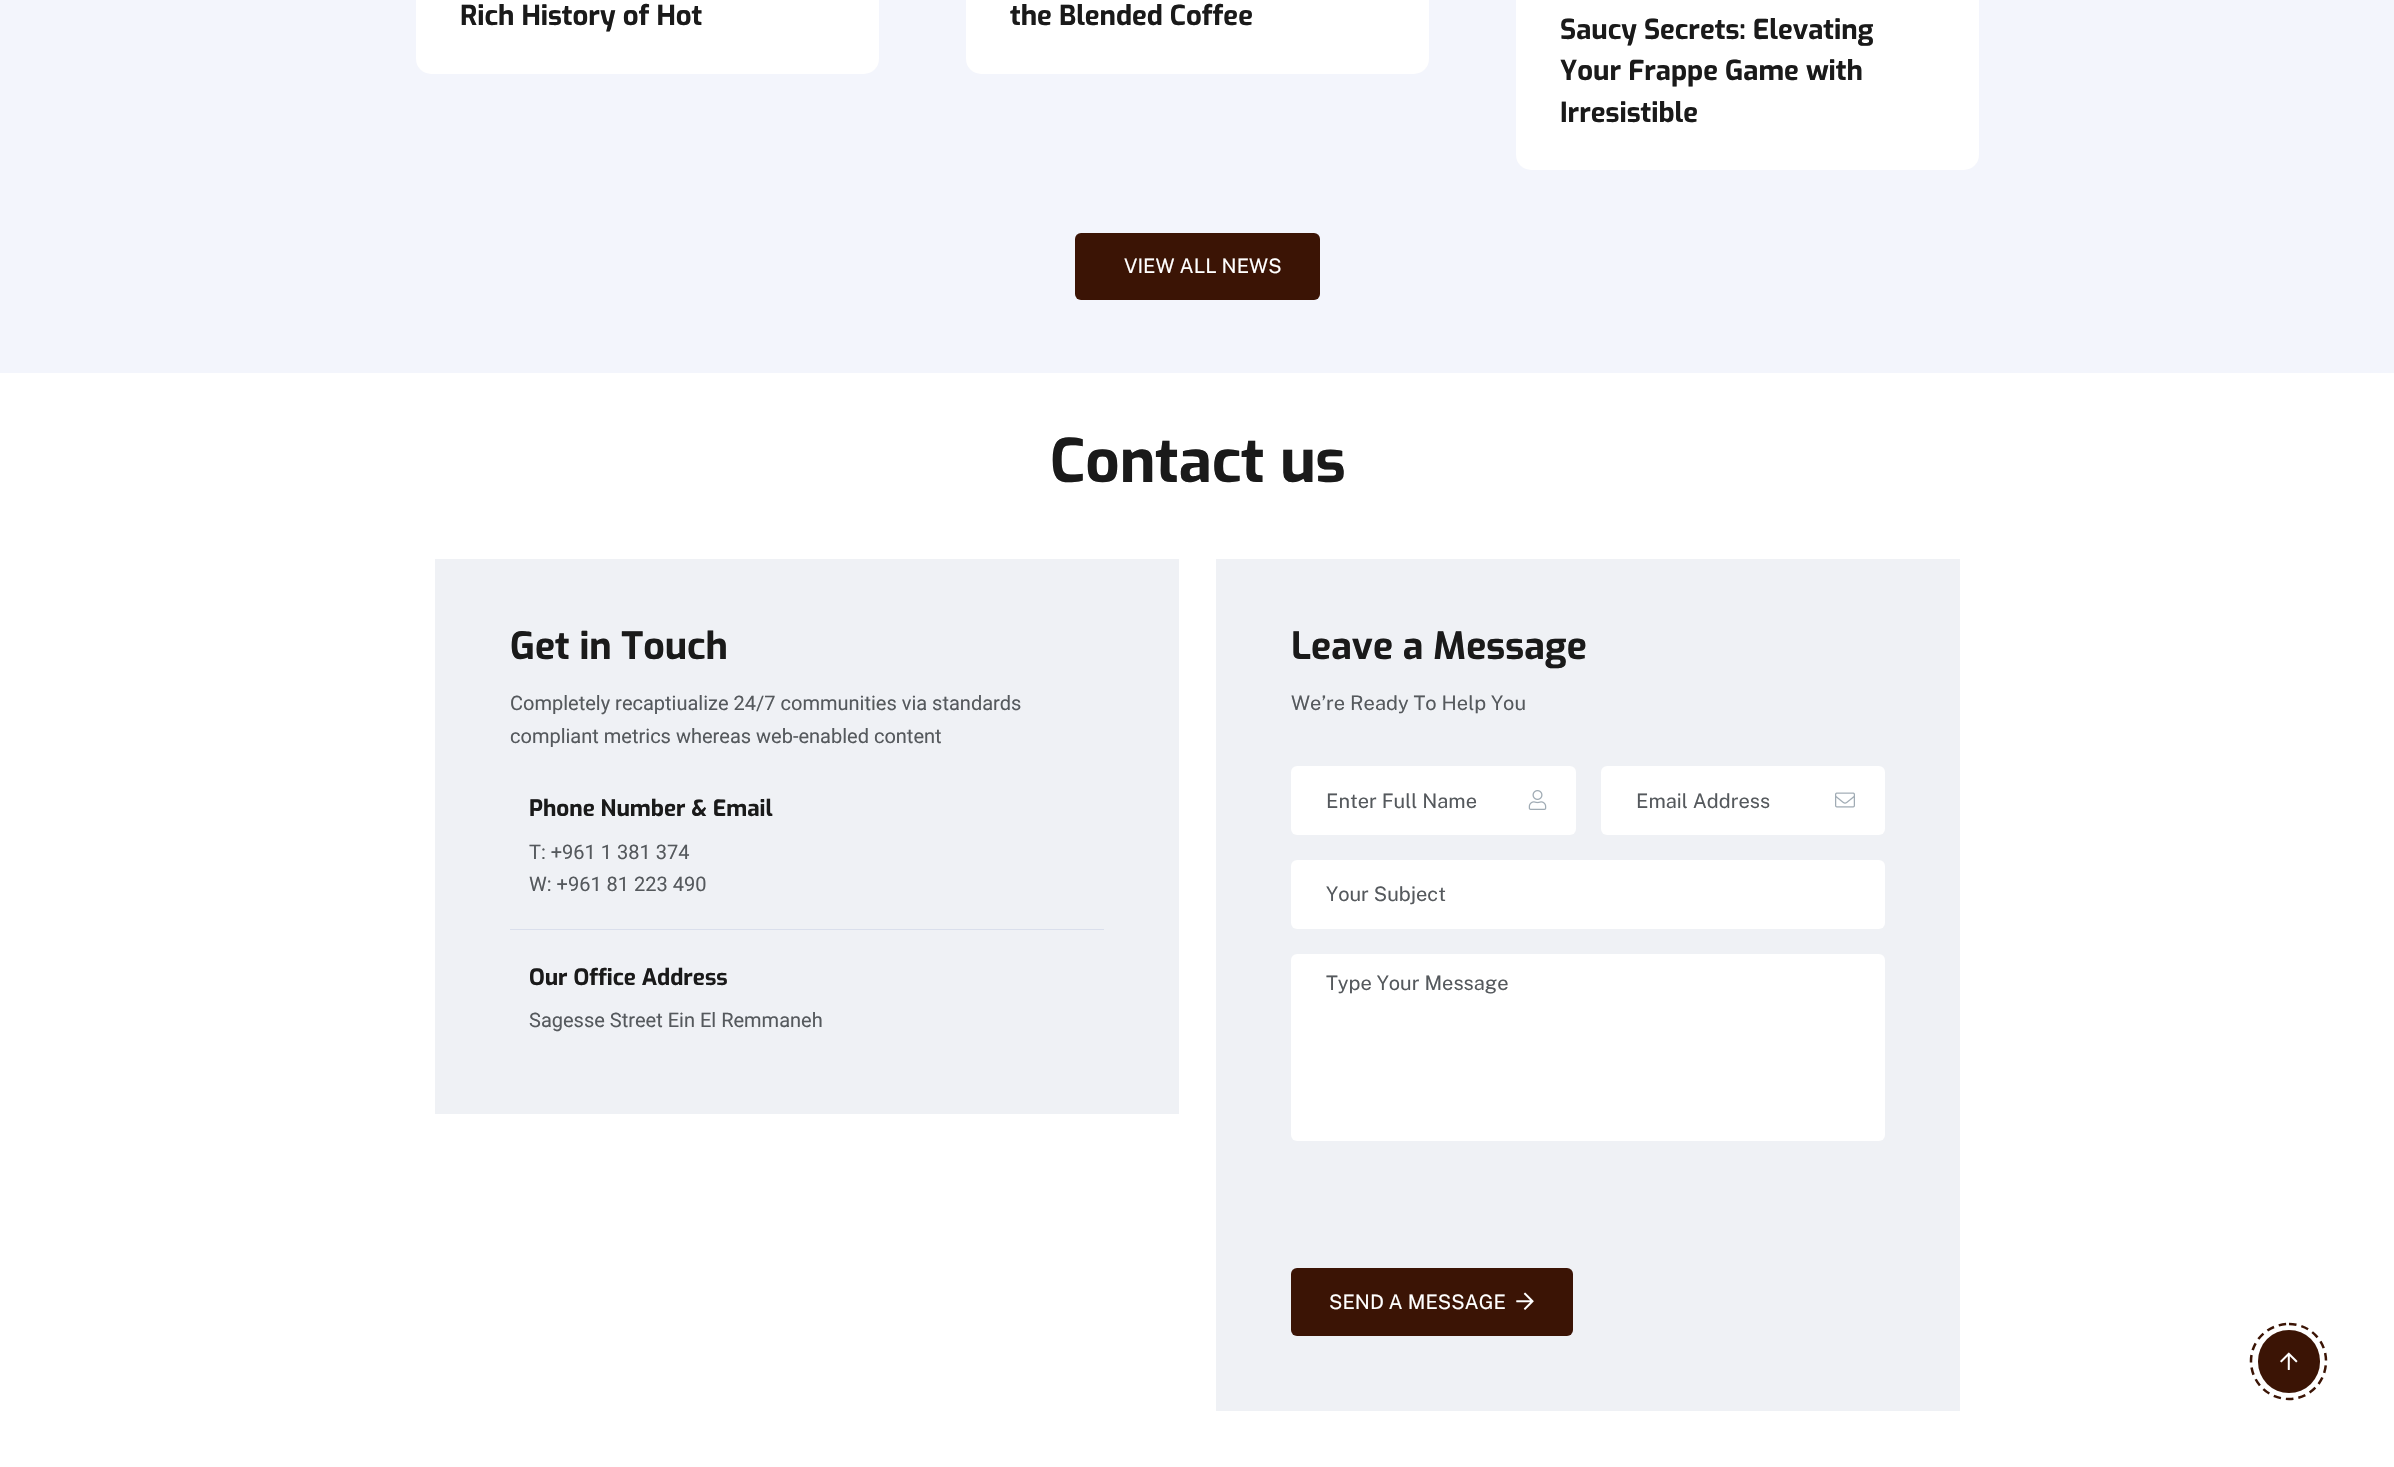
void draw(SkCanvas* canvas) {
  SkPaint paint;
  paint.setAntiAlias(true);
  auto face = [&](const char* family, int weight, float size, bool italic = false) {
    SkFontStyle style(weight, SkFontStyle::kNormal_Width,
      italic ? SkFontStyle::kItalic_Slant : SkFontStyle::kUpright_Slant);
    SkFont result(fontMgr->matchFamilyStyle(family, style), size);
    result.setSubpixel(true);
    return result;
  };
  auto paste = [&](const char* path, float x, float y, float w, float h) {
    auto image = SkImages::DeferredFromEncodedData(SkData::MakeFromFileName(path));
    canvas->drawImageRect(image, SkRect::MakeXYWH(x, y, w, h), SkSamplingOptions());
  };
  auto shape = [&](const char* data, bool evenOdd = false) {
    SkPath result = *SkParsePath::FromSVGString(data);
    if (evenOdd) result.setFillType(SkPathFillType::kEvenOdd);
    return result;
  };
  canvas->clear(0xffffffff);
  paint.setColor(0xfff3f5fc);
  canvas->drawRect(SkRect::MakeXYWH(0, 0, 2394, 373), paint);
  paint.setColor(0xffffffff);
  canvas->drawRoundRect(SkRect::MakeXYWH(416, -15, 463, 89), 15, 15, paint);
  canvas->drawRoundRect(SkRect::MakeXYWH(966, -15, 463, 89), 15, 15, paint);
  canvas->drawRoundRect(SkRect::MakeXYWH(1516, -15, 463, 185), 15, 15, paint);
  paint.setColor(0xff3b1405);
  canvas->drawRoundRect(SkRect::MakeXYWH(1075, 233, 245, 67), 6, 6, paint);
  {
    const struct { float x, y, w, h; SkColor color; } items[] = {
      {435, 559, 744, 555, 0xffeff1f5},
      {510, 929, 594, 1, 0xffdadfec},
      {1216, 559, 744, 852, 0xffeff1f5},
    };
    for (auto [x, y, w, h, color] : items) {
      paint.setColor(color);
      canvas->drawRect(SkRect::MakeXYWH(x, y, w, h), paint);
    }
  }
  paint.setColor(0xffffffff);
  canvas->drawRoundRect(SkRect::MakeXYWH(1291, 766, 285, 69), 6, 6, paint);
  paste("img/1.png", 1528, 790, 19, 20);
  canvas->drawRoundRect(SkRect::MakeXYWH(1601, 766, 284, 69), 6, 6, paint);
  paste("img/2.png", 1835, 792, 20, 16);
  canvas->drawRoundRect(SkRect::MakeXYWH(1291, 860, 594, 69), 6, 6, paint);
  canvas->drawRoundRect(SkRect::MakeXYWH(1291, 954, 594, 187), 6, 6, paint);
  paint.setColor(0xff3b1405);
  canvas->drawRoundRect(SkRect::MakeXYWH(1291, 1268, 282, 68), 6, 6, paint);
  paste("img/3.png", 1516, 1292, 18, 18);
  paint.setStroke(true);
  paint.setStrokeWidth(2.5f);
  paint.setPathEffect(SkDashPathEffect::Make({{7.5f, 5}}, 0));
  canvas->drawPath(shape("M2289 1324C2309.5 1324 2326 1340.5 2326 1361C2326 1382 2309.5 1399 2289 1399C2268 1399 2251 1382 2251 1361C2251 1340.5 2268 1324 2289 1324Z"), paint);
  paint.setPathEffect(nullptr);
  paint.setStroke(false);
  canvas->drawRoundRect(SkRect::MakeXYWH(2258, 1330, 62, 63), 31, 31, paint);
  paste("img/4.png", 2280, 1352, 18, 18);
  auto f0 = face("Exo", 700, 27.5f);
  paint.setColor(0xff1a1a1a);
  {
    const struct { const char* s; float x, y; } items[] = {
      {"Rich History of Hot", 460, 25},
      {"the Blended Coffee", 1010, 25},
      {"Saucy Secrets: Elevating", 1560, 39},
      {"Your Frappe Game with", 1560, 80},
      {"Irresistible", 1560, 122},
    };
    for (auto [s, x, y] : items) {
      canvas->drawString(s, x, y, f0, paint);
    }
  }
  auto f1 = face("Public Sans", 100, 20);
  paint.setColor(0xffffffff);
  canvas->drawString("VIEW ALL NEWS", 1124, 273, f1, paint);
  auto f2 = face("Exo", 700, 60);
  paint.setColor(0xff1a1a1a);
  canvas->drawString("Contact us", 1050, 482, f2, paint);
  auto f3 = face("Exo", 700, 37.5f);
  canvas->drawString("Get in Touch", 510, 659, f3, paint);
  auto f4 = face("Roboto", 400, 20);
  paint.setColor(0xff55595d);
  canvas->drawString("Completely recaptiualize 24/7 communities via standards", 510, 710, f4, paint);
  canvas->drawString("compliant metrics whereas web-enabled content", 510, 743, f4, paint);
  auto f5 = face("Exo", 700, 22.5f);
  paint.setColor(0xff1a1a1a);
  canvas->drawString("Phone Number & Email", 529, 816, f5, paint);
  paint.setColor(0xff55595d);
  canvas->drawString("T: +961 1 381 374", 529, 859, f4, paint);
  canvas->drawString("W: +961 81 223 490", 529, 891, f4, paint);
  paint.setColor(0xff1a1a1a);
  canvas->drawString("Our Office Address", 529, 985, f5, paint);
  paint.setColor(0xff55595d);
  canvas->drawString("Sagesse Street Ein El Remmaneh", 529, 1027, f4, paint);
  paint.setColor(0xff1a1a1a);
  canvas->drawString("Leave a Message", 1291, 659, f3, paint);
  paint.setColor(0xff55595d);
  {
    const struct { const char* s; float x, y; } items[] = {
      {"We’re Ready To Help You", 1291, 710},
      {"Enter Full Name", 1326, 808},
      {"Email Address", 1636, 808},
      {"Your Subject", 1326, 901},
      {"Type Your Message", 1326, 990},
    };
    for (auto [s, x, y] : items) {
      canvas->drawString(s, x, y, f1, paint);
    }
  }
  paint.setColor(0xffffffff);
  canvas->drawString("SEND A MESSAGE", 1329, 1309, f1, paint);
}
